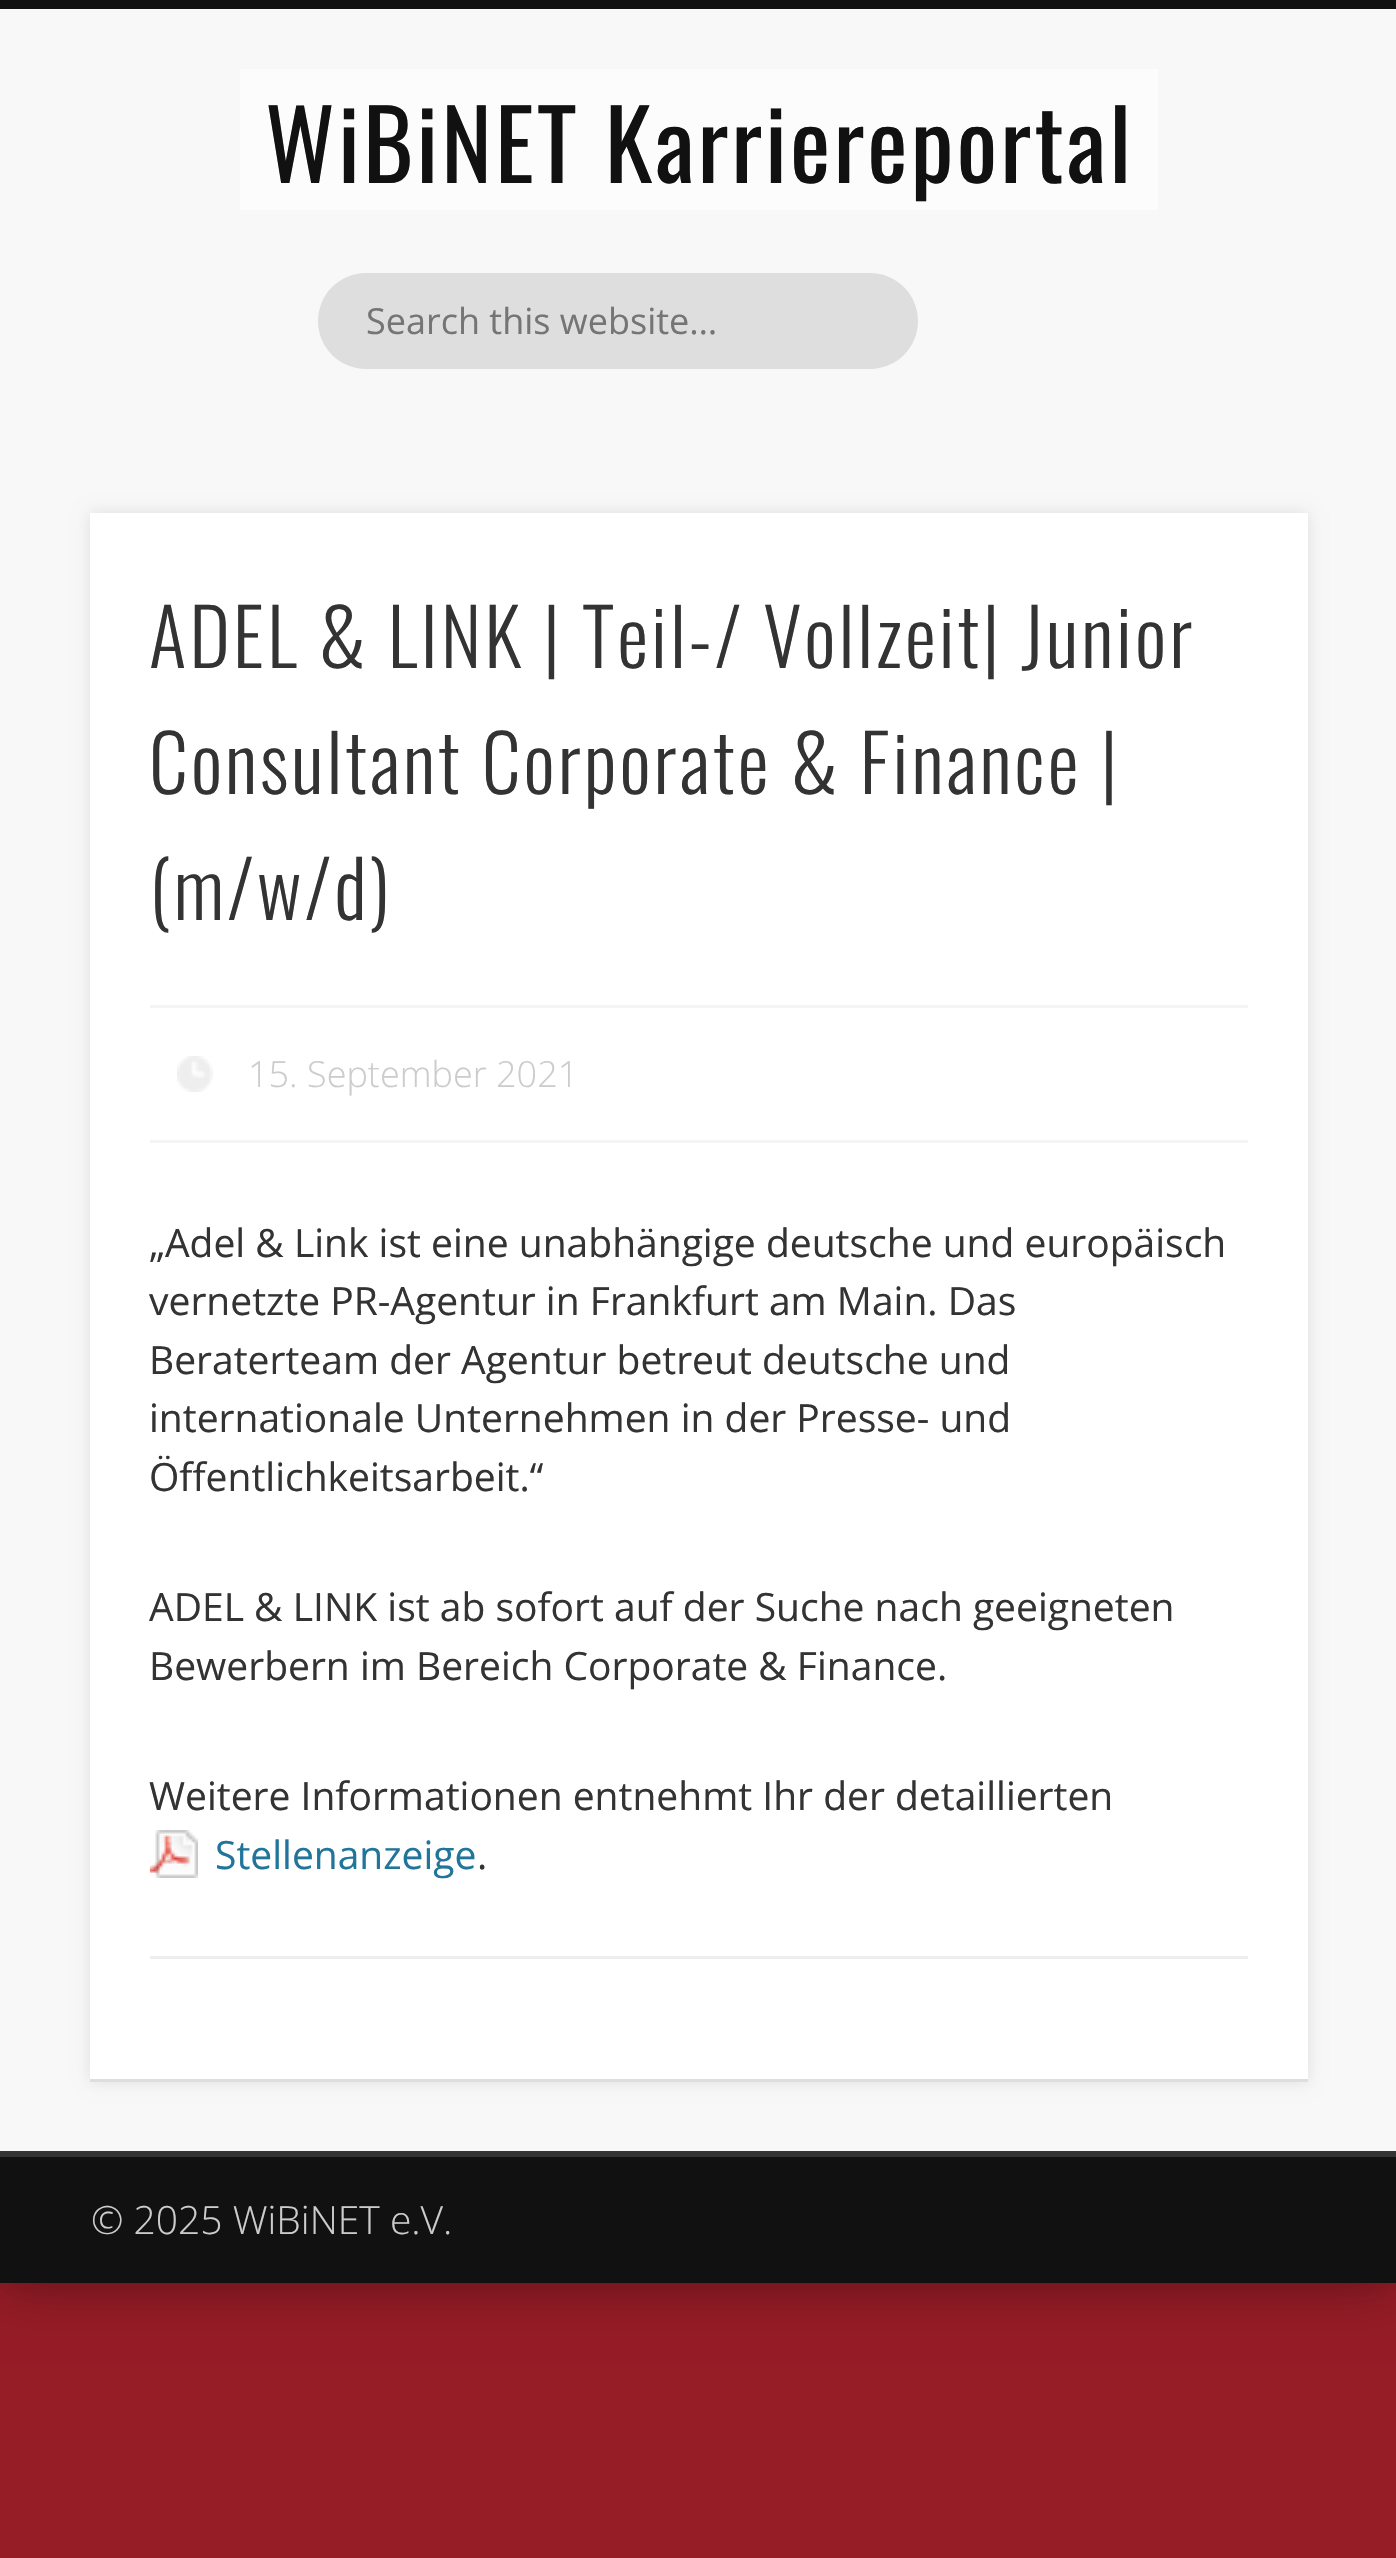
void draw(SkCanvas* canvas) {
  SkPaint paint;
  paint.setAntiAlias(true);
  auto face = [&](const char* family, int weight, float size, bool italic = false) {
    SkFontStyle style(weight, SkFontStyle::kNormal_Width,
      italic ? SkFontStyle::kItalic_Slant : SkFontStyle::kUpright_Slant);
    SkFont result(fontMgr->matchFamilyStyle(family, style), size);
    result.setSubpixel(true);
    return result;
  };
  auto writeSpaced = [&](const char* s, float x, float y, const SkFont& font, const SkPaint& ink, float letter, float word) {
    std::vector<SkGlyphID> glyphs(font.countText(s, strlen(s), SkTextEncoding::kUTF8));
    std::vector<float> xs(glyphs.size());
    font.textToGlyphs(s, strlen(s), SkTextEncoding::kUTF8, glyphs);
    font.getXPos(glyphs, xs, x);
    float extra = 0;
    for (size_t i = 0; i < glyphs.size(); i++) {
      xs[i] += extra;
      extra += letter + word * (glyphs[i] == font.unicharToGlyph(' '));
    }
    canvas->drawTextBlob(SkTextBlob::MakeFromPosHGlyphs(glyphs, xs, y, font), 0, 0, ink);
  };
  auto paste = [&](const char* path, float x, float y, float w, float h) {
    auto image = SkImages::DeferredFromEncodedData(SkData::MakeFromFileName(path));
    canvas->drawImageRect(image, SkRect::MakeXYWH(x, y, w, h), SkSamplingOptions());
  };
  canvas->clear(0xff961c26);
  paint.setColor(0x66000000);
  paint.setMaskFilter(SkMaskFilter::MakeBlur(kNormal_SkBlurStyle, 27));
  canvas->drawRect(SkRect::MakeXYWH(0, 0, 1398, 2283), paint);
  paint.setMaskFilter(nullptr);
  {
    const struct { float x, y, w, h; SkColor color; } items[] = {
      {0, 9, 1396, 2142, 0xfff8f8f8},
      {0, 0, 1396, 9, 0xff111111},
      {240, 69, 918, 141, 0xfffcfcfc},
    };
    for (auto [x, y, w, h, color] : items) {
      paint.setColor(color);
      canvas->drawRect(SkRect::MakeXYWH(x, y, w, h), paint);
    }
  }
  paint.setColor(0xffdedede);
  canvas->drawRoundRect(SkRect::MakeXYWH(318, 273, 600, 96), 48, 48, paint);
  paint.setColor(0x1a000000);
  paint.setMaskFilter(SkMaskFilter::MakeBlur(kNormal_SkBlurStyle, 7.5f));
  canvas->drawRect(SkRect::MakeXYWH(90, 513, 1218, 1569), paint);
  paint.setMaskFilter(nullptr);
  {
    const struct { float x, y, w, h; SkColor color; } items[] = {
      {90, 513, 1218, 1566, 0xffffffff},
      {90, 2079, 1218, 3, 0xffdedede},
      {150, 1005, 1098, 3, 0xfff4f4f4},
      {150, 1140, 1098, 3, 0xfff4f4f4},
    };
    for (auto [x, y, w, h, color] : items) {
      paint.setColor(color);
      canvas->drawRect(SkRect::MakeXYWH(x, y, w, h), paint);
    }
  }
  paste("img/1.png", 177, 1056, 36, 36);
  paste("img/2.png", 150, 1830, 48, 48);
  {
    const struct { float x, y, w, h; SkColor color; } items[] = {
      {150, 1956, 1098, 3, 0xffeeeeee},
      {0, 2151, 1396, 6, 0xff343434},
      {0, 2157, 1396, 126, 0xff111111},
    };
    for (auto [x, y, w, h, color] : items) {
      paint.setColor(color);
      canvas->drawRect(SkRect::MakeXYWH(x, y, w, h), paint);
    }
  }
  auto f0 = face("Oswald", 400, 96);
  writeSpaced("WiBiNET Karriereportal", 265, 183, f0, paint, 3, 0);
  auto f1 = face("Open Sans", 400, 36);
  paint.setColor(0xff757575);
  canvas->drawString("Search this website…", 366, 334, f1, paint);
  auto f2 = face("Oswald", 300, 78);
  paint.setColor(0xff333333);
  {
    const struct { const char* s; float x, y; } items[] = {
      {"ADEL & LINK | Teil-/ Vollzeit| Junior", 149, 668},
      {"Consultant Corporate & Finance |", 149, 794},
      {"(m/w/d)", 149, 920},
    };
    for (auto [s, x, y] : items) {
      writeSpaced(s, x, y, f2, paint, 3, 0);
    }
  }
  auto f3 = face("Open Sans", 300, 36);
  paint.setColor(0xffcccccc);
  canvas->drawString("15. September 2021", 248, 1087, f3, paint);
  auto f4 = face("Open Sans", 400, 39);
  paint.setColor(0xff333333);
  {
    const struct { const char* s; float x, y; } items[] = {
      {"„Adel & Link ist eine unabhängige deutsche und europäisch", 149, 1257},
      {"vernetzte PR-Agentur in Frankfurt am Main. Das", 149, 1315},
      {"Beraterteam der Agentur betreut deutsche und", 149, 1374},
      {"internationale Unternehmen in der Presse- und", 149, 1432},
      {"Öffentlichkeitsarbeit.“", 149, 1491},
      {"ADEL & LINK ist ab sofort auf der Suche nach geeigneten", 149, 1621},
      {"Bewerbern im Bereich Corporate & Finance.", 149, 1680},
      {"Weitere Informationen entnehmt Ihr der detaillierten", 149, 1810},
    };
    for (auto [s, x, y] : items) {
      canvas->drawString(s, x, y, f4, paint);
    }
  }
  paint.setColor(0xff21759b);
  canvas->drawString("Stellenanzeige", 215, 1869, f4, paint);
  paint.setColor(0xff333333);
  canvas->drawString(".", 477, 1869, f4, paint);
  auto f5 = face("Open Sans", 300, 39);
  paint.setColor(0xffcccccc);
  canvas->drawString("© 2025 WiBiNET e.V.", 91, 2234, f5, paint);
}
